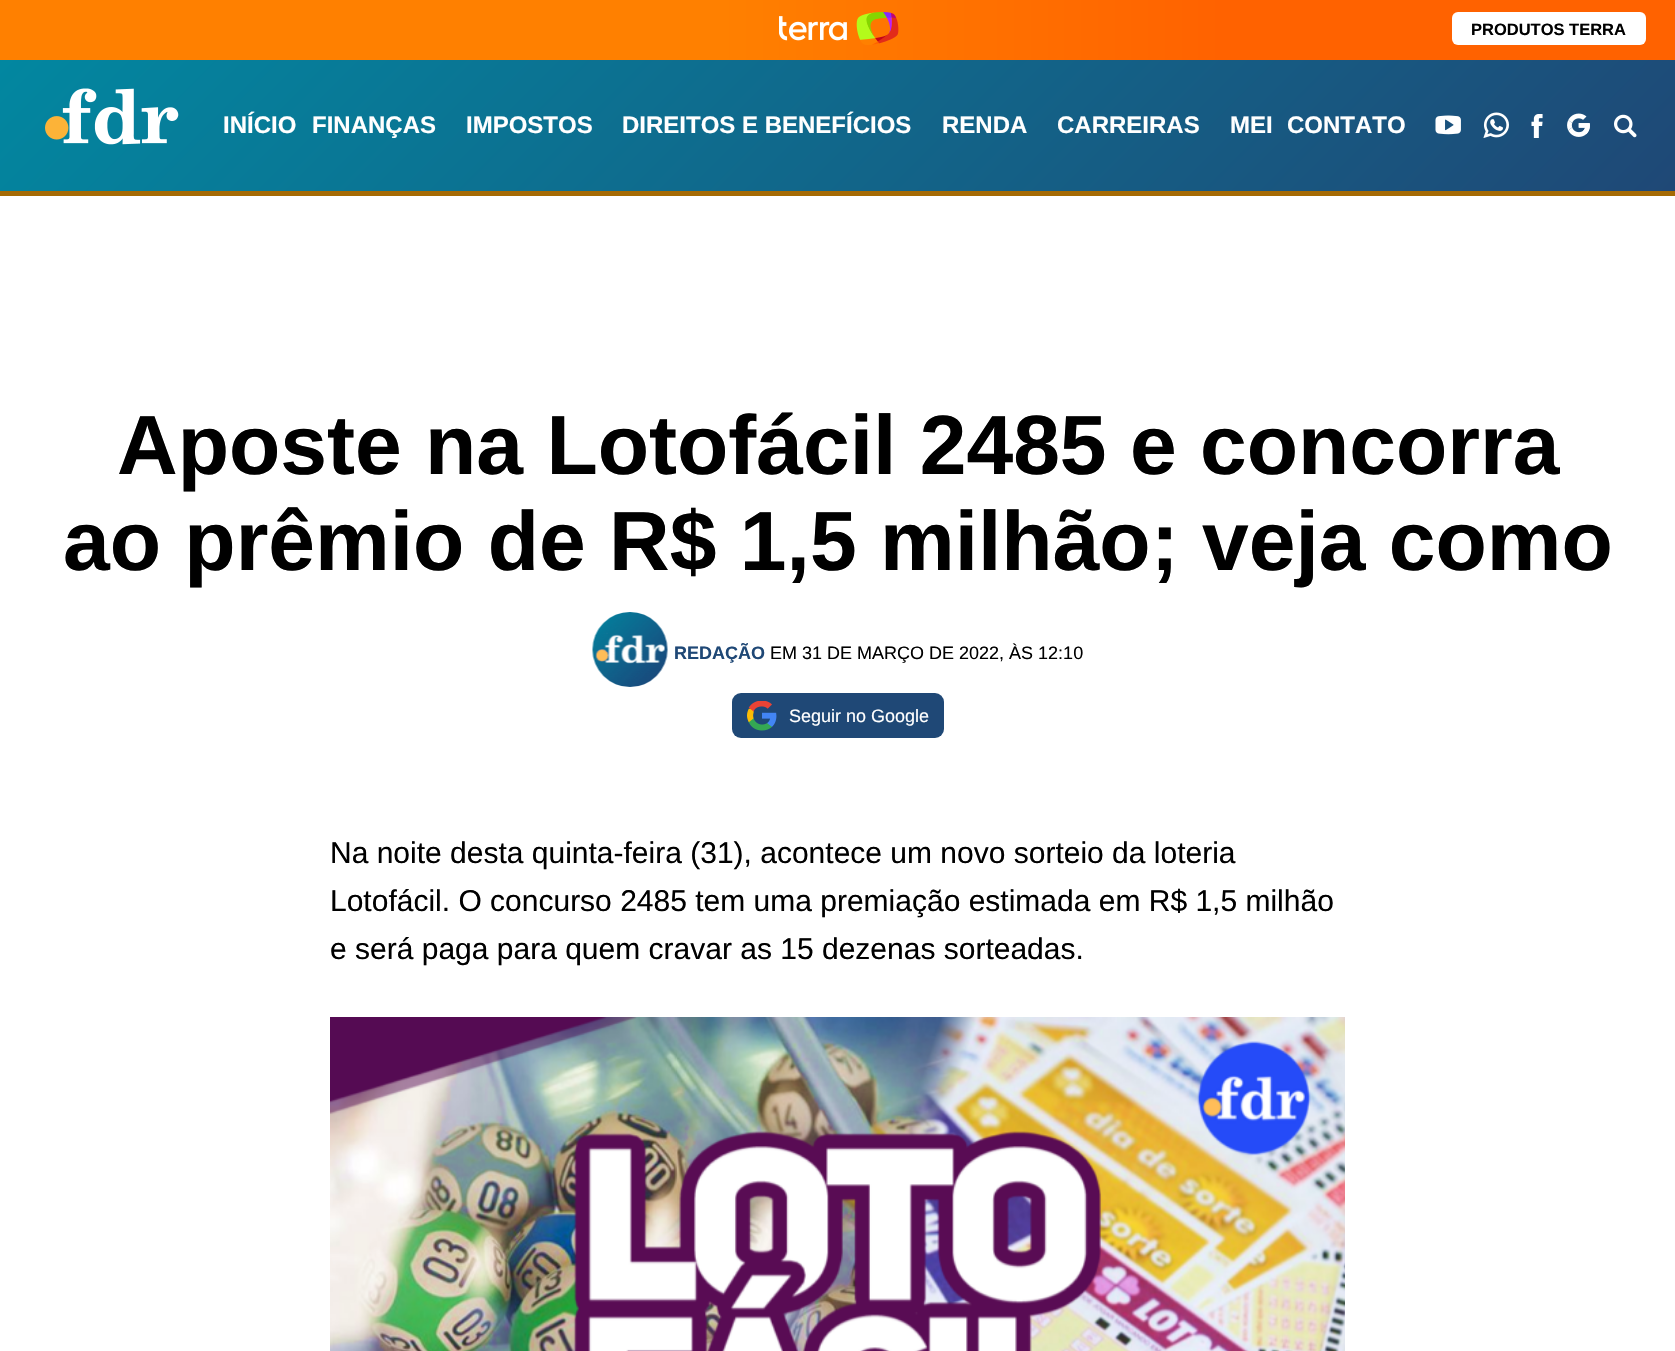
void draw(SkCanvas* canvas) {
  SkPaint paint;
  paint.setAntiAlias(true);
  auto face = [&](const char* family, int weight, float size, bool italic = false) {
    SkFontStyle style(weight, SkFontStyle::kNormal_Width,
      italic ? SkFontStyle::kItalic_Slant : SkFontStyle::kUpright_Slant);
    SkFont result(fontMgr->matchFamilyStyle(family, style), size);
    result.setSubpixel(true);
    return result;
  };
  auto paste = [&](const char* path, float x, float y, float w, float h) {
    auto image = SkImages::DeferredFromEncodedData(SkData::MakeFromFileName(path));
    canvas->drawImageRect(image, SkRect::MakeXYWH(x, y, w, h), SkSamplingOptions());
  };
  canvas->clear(0xffffffff);
  {
    const SkColor colors[] = {0xffff8000, 0xffff6200};
    const float stops[] = {0.43f, 0.73f};
    const SkPoint ends[] = {{0, 30}, {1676, 30}};
    paint.setShader(SkGradientShader::MakeLinear(ends, colors, stops, 2, SkTileMode::kClamp));
    paint.setAlpha(255);
  }
  canvas->drawRect(SkRect::MakeXYWH(0, 0, 1675, 60), paint);
  paste("img/1.png", 779, 12, 120, 33);
  paint.setShader(nullptr);
  paint.setColor(0xffffffff);
  canvas->drawRoundRect(SkRect::MakeXYWH(1452, 12, 194, 33), 6, 6, paint);
  {
    const SkColor colors[] = {0xff0287a0, 0xff1f4876};
    const float stops[] = {0, 1};
    const SkPoint ends[] = {{386, -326}, {1289, 577}};
    paint.setShader(SkGradientShader::MakeLinear(ends, colors, stops, 2, SkTileMode::kClamp));
    paint.setAlpha(255);
  }
  canvas->drawRect(SkRect::MakeXYWH(0, 60, 1675, 131), paint);
  paint.setShader(nullptr);
  paint.setColor(0xffa56a04);
  canvas->drawRect(SkRect::MakeXYWH(0, 191, 1675, 5), paint);
  paste("img/2.png", 45, 88, 134, 57);
  paste("img/3.png", 1435, 115, 26, 20);
  paste("img/4.png", 1483, 112, 26, 26);
  paste("img/5.png", 1531, 114, 12, 24);
  paste("img/6.png", 1567, 113, 23, 24);
  paste("img/7.png", 1614, 114, 23, 24);
  paste("img/8.png", 592, 612, 76, 75);
  paint.setColor(0xff1f4876);
  canvas->drawRoundRect(SkRect::MakeXYWH(732, 693, 212, 45), 9, 9, paint);
  paste("img/9.png", 747, 701, 30, 30);
  paste("img/10.png", 330, 1017, 1015, 334);
  auto f0 = face("Liberation Sans", 700, 16.5f);
  paint.setColor(0xff000000);
  canvas->drawString("PRODUTOS TERRA", 1471, 35, f0, paint);
  auto f1 = face("Liberation Sans", 700, 24);
  paint.setColor(0xffffffff);
  {
    const struct { const char* s; float x, y; } items[] = {
      {"INÍCIO", 223, 133},
      {"FINANÇAS", 312, 133},
      {"IMPOSTOS", 466, 133},
      {"DIREITOS E BENEFÍCIOS", 622, 133},
      {"RENDA", 942, 133},
      {"CARREIRAS", 1057, 133},
      {"MEI", 1230, 133},
      {"CONTATO", 1287, 133},
    };
    for (auto [s, x, y] : items) {
      canvas->drawString(s, x, y, f1, paint);
    }
  }
  auto f2 = face("Liberation Sans", 700, 84);
  paint.setColor(0xff000000);
  canvas->drawString("Aposte na Lotofácil 2485 e concorra", 117, 474, f2, paint);
  canvas->drawString("ao prêmio de R$ 1,5 milhão; veja como", 63, 570, f2, paint);
  auto f3 = face("Liberation Sans", 700, 18);
  paint.setColor(0xff1f4876);
  canvas->drawString("REDAÇÃO", 674, 659, f3, paint);
  auto f4 = face("Liberation Sans", 400, 18);
  paint.setColor(0xff000000);
  canvas->drawString("EM 31 DE MARÇO DE 2022, ÀS 12:10", 770, 659, f4, paint);
  paint.setColor(0xffffffff);
  canvas->drawString("Seguir no Google", 789, 722, f4, paint);
  auto f5 = face("Liberation Sans", 400, 30);
  paint.setColor(0xff000000);
  {
    const struct { const char* s; float x, y; } items[] = {
      {"Na noite desta quinta-feira (31), acontece um novo sorteio da loteria", 330, 863},
      {"Lotofácil. O concurso 2485 tem uma premiação estimada em R$ 1,5 milhão", 330, 911},
      {"e será paga para quem cravar as 15 dezenas sorteadas.", 330, 959},
    };
    for (auto [s, x, y] : items) {
      canvas->drawString(s, x, y, f5, paint);
    }
  }
}
